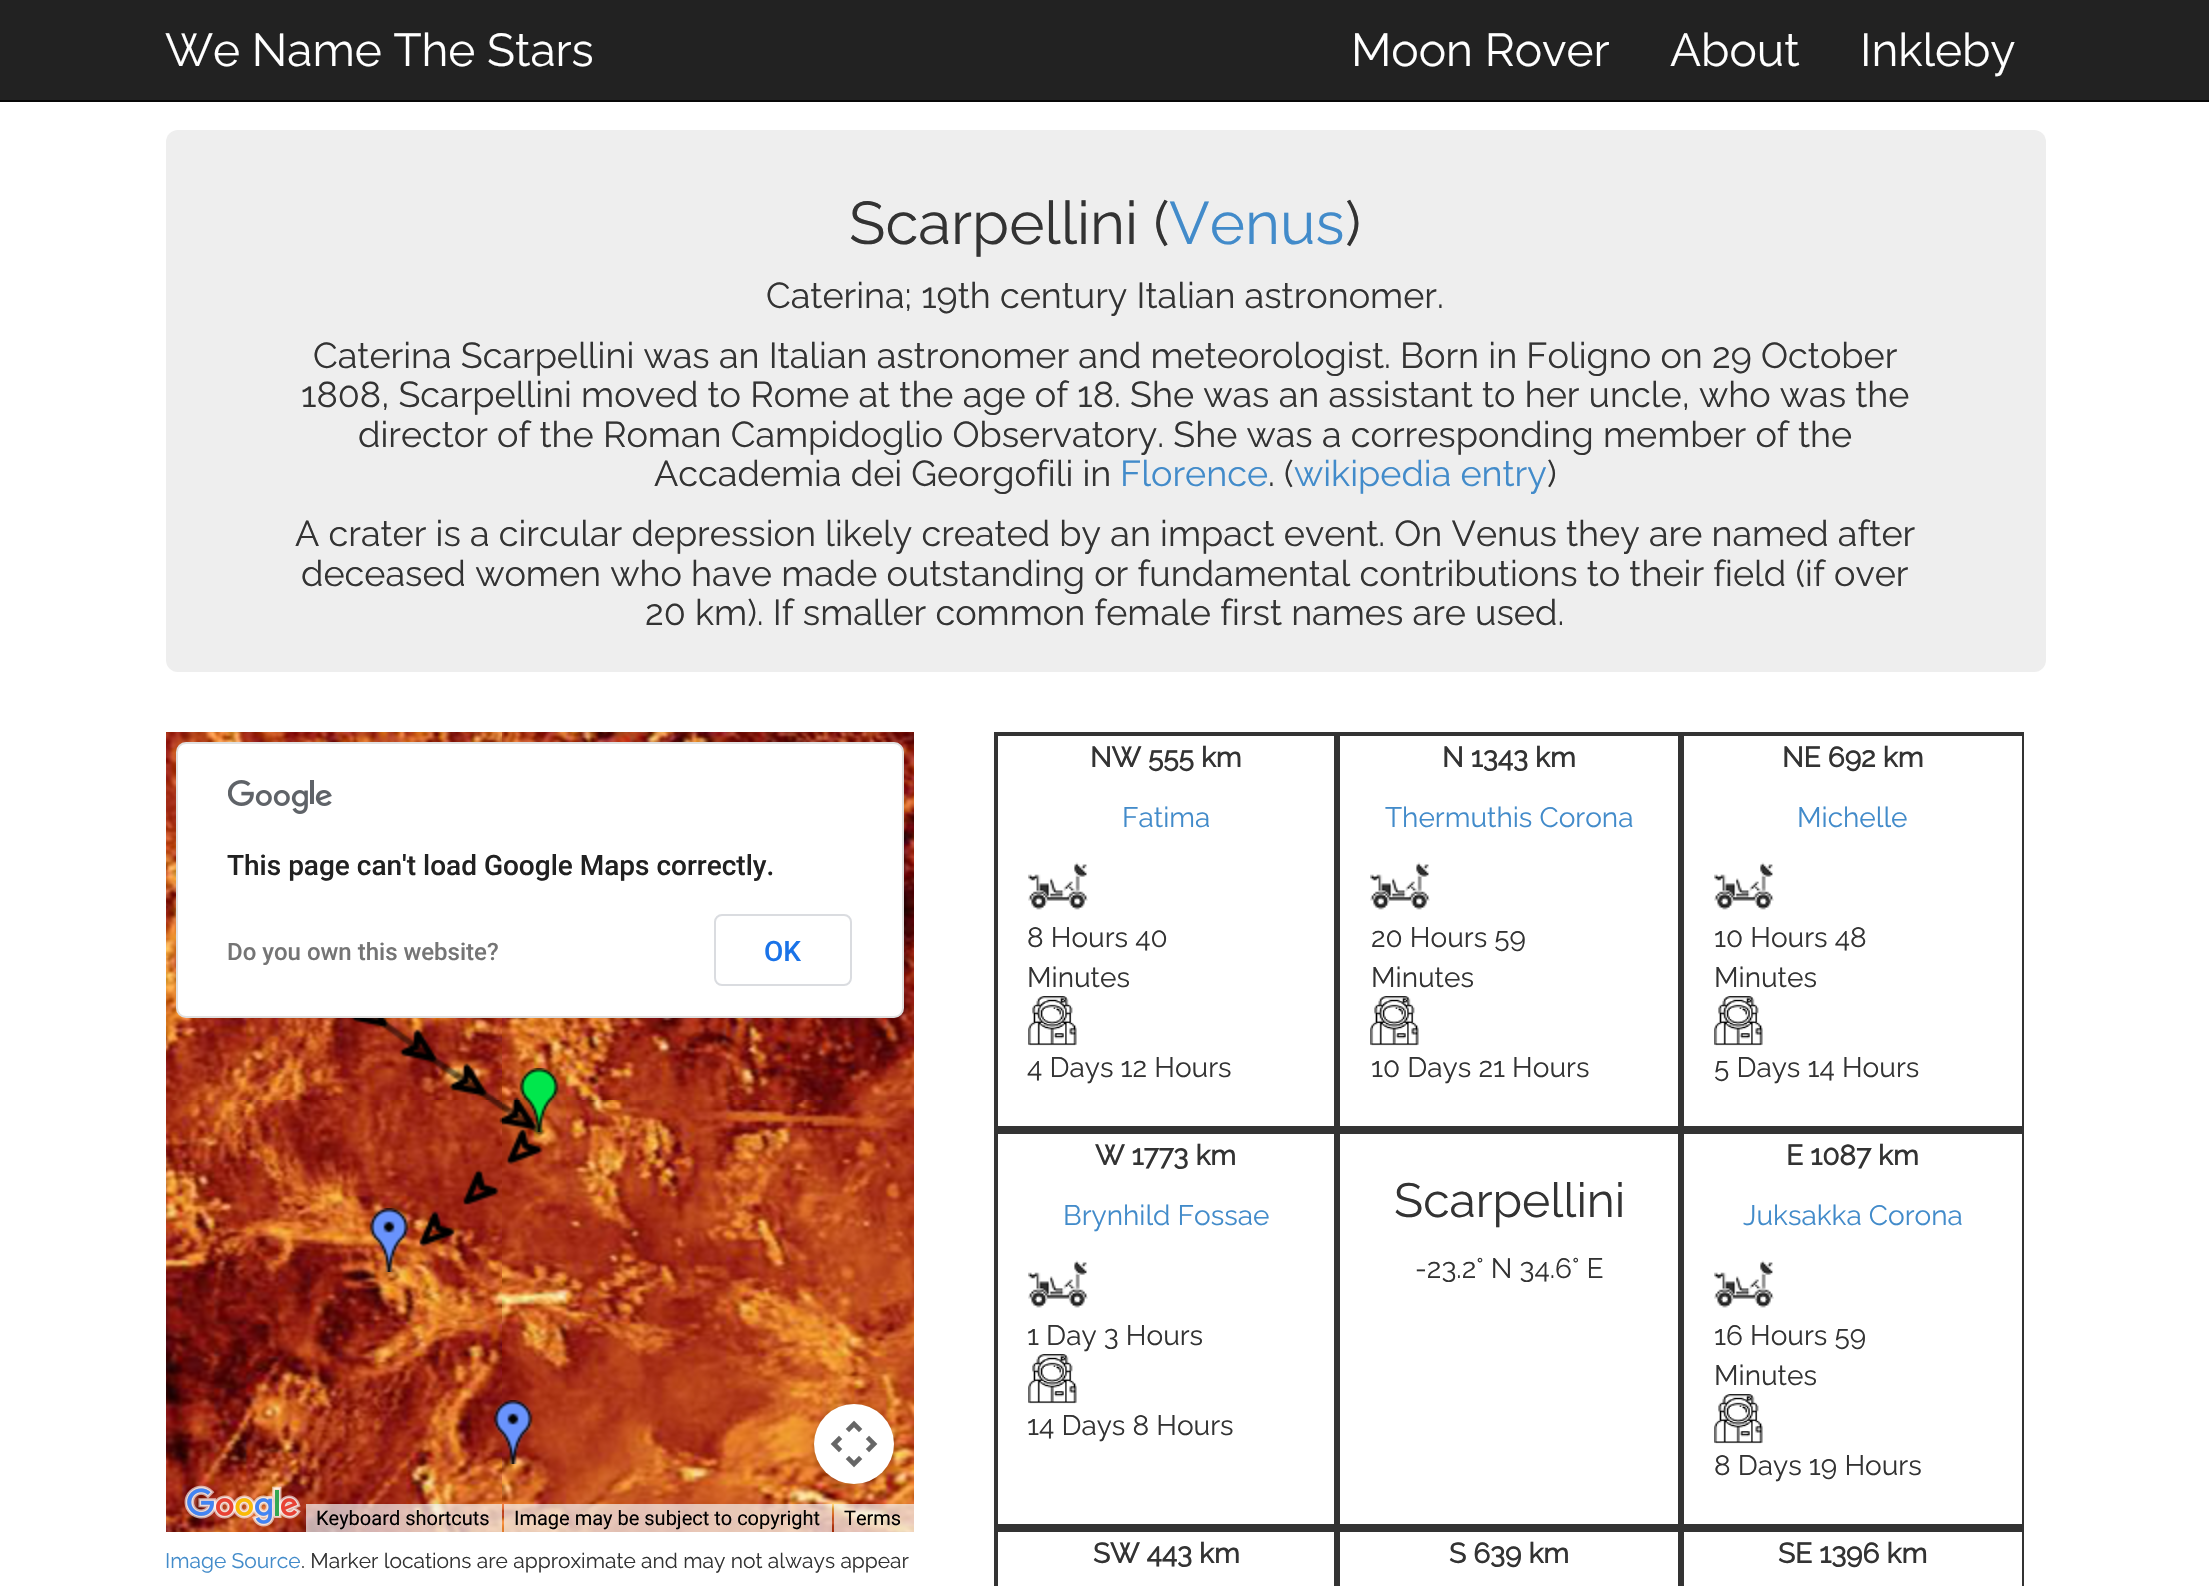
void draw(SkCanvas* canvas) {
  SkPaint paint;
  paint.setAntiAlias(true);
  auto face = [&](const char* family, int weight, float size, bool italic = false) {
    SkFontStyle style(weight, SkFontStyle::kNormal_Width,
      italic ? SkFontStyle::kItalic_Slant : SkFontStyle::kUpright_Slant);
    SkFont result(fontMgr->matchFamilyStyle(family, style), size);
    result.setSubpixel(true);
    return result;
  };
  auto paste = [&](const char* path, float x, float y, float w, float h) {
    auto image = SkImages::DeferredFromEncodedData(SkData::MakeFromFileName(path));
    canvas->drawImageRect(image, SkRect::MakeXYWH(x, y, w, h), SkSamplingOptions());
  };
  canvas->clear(0xffffffff);
  paint.setColor(0xff222222);
  canvas->drawRect(SkRect::MakeXYWH(0, 0, 2209, 100), paint);
  paint.setColor(0xff080808);
  canvas->drawRect(SkRect::MakeXYWH(0, 100, 2209, 2), paint);
  paint.setColor(0xffeeeeee);
  canvas->drawRoundRect(SkRect::MakeXYWH(166, 130, 1880, 542), 12, 12, paint);
  paste("img/2.png", 166, 732, 336, 368);
  paste("img/3.png", 502, 732, 412, 368);
  paint.setColor(0xffffffff);
  canvas->drawRoundRect(SkRect::MakeXYWH(176, 742, 728, 276), 10, 10, paint);
  paint.setStroke(true);
  paint.setStrokeWidth(2);
  paint.setColor(0x1f000000);
  canvas->drawRoundRect(SkRect::MakeXYWH(177, 743, 726, 274), 9, 9, paint);
  paste("img/1.png", 228, 780, 104, 34);
  paint.setColor(0xffdadce0);
  canvas->drawRoundRect(SkRect::MakeXYWH(715, 915, 136, 70), 7, 7, paint);
  paste("img/4.png", 166, 1100, 336, 432);
  paste("img/5.png", 502, 1100, 412, 432);
  paste("img/6.png", 351, 1018, 148, 82);
  paste("img/7.png", 513, 1097, 8, 3);
  paste("img/8.png", 419, 1100, 83, 147);
  paste("img/9.png", 502, 1100, 43, 65);
  paste("img/10.png", 519, 1068, 40, 64);
  paste("img/11.png", 369, 1208, 40, 64);
  paste("img/12.png", 493, 1400, 40, 64);
  paint.setStroke(false);
  paint.setColor(0x4d000000);
  paint.setMaskFilter(SkMaskFilter::MakeBlur(kNormal_SkBlurStyle, 4));
  canvas->drawRoundRect(SkRect::MakeXYWH(816, 1408, 76, 76), 38, 38, paint);
  paint.setMaskFilter(nullptr);
  paint.setColor(0xffffffff);
  canvas->drawCircle(854, 1444, 40, paint);
  paste("img/13.png", 830, 1420, 48, 48);
  paste("img/14.png", 184, 1485, 117, 42);
  {
    const struct { float x, y, w, h; SkColor color; } items[] = {
      {306, 1504, 196, 28, 0xb3f5f5f5},
      {504, 1504, 328, 28, 0xb3f5f5f5},
      {834, 1504, 80, 28, 0xb3f5f5f5},
      {994, 1126, 1030, 4, 0xff333333},
      {994, 732, 1030, 4, 0xff333333},
      {1334, 732, 6, 394, 0xff333333},
      {994, 732, 4, 394, 0xff333333},
    };
    for (auto [x, y, w, h, color] : items) {
      paint.setColor(color);
      canvas->drawRect(SkRect::MakeXYWH(x, y, w, h), paint);
    }
  }
  paste("img/15.png", 1028, 862, 60, 48);
  paste("img/16.png", 1028, 996, 49, 50);
  canvas->drawRect(SkRect::MakeXYWH(1678, 732, 6, 394), paint);
  paste("img/15.png", 1370, 862, 60, 48);
  paste("img/17.png", 1370, 996, 49, 50);
  canvas->drawRect(SkRect::MakeXYWH(2022, 732, 2, 394), paint);
  paste("img/18.png", 1714, 862, 60, 48);
  paste("img/17.png", 1714, 996, 49, 50);
  {
    const struct { float x, y, w, h; SkColor color; } items[] = {
      {994, 1524, 1030, 4, 0xff333333},
      {994, 1130, 1030, 4, 0xff333333},
      {1334, 1130, 6, 394, 0xff333333},
      {994, 1130, 4, 394, 0xff333333},
    };
    for (auto [x, y, w, h, color] : items) {
      paint.setColor(color);
      canvas->drawRect(SkRect::MakeXYWH(x, y, w, h), paint);
    }
  }
  paste("img/19.png", 1028, 1260, 60, 48);
  paste("img/16.png", 1028, 1354, 49, 50);
  canvas->drawRect(SkRect::MakeXYWH(1678, 1130, 6, 394), paint);
  canvas->drawRect(SkRect::MakeXYWH(2022, 1130, 2, 394), paint);
  paste("img/20.png", 1714, 1260, 60, 48);
  paste("img/17.png", 1714, 1394, 49, 50);
  {
    const struct { float x, y, w, h; SkColor color; } items[] = {
      {994, 1528, 1030, 4, 0xff333333},
      {1334, 1528, 6, 58, 0xff333333},
      {994, 1528, 4, 58, 0xff333333},
      {1678, 1528, 6, 58, 0xff333333},
      {2022, 1528, 2, 58, 0xff333333},
    };
    for (auto [x, y, w, h, color] : items) {
      paint.setColor(color);
      canvas->drawRect(SkRect::MakeXYWH(x, y, w, h), paint);
    }
  }
  auto f0 = face("Raleway", 400, 46);
  paint.setColor(0xffffffff);
  {
    const struct { const char* s; float x, y; } items[] = {
      {"We Name The Stars", 165, 66},
      {"Moon Rover", 1351, 66},
      {"About", 1670, 66},
      {"Inkleby", 1860, 66},
    };
    for (auto [s, x, y] : items) {
      canvas->drawString(s, x, y, f0, paint);
    }
  }
  auto f1 = face("Raleway", 400, 60);
  paint.setColor(0xff333333);
  canvas->drawString("Scarpellini (", 849, 244, f1, paint);
  paint.setColor(0xff428bca);
  canvas->drawString("Venus", 1169, 244, f1, paint);
  paint.setColor(0xff333333);
  canvas->drawString(")", 1345, 244, f1, paint);
  auto f2 = face("Raleway", 400, 36);
  {
    const struct { const char* s; float x, y; } items[] = {
      {"Caterina; 19th century Italian astronomer.", 766, 308},
      {"Caterina Scarpellini was an Italian astronomer and meteorologist. Born in Foligno on 29 October", 313, 368},
      {"1808, Scarpellini moved to Rome at the age of 18. She was an assistant to her uncle, who was the", 301, 407},
      {"director of the Roman Campidoglio Observatory. She was a corresponding member of the", 358, 447},
      {"Accademia dei Georgofili in", 654, 486},
    };
    for (auto [s, x, y] : items) {
      canvas->drawString(s, x, y, f2, paint);
    }
  }
  paint.setColor(0xff428bca);
  canvas->drawString("Florence", 1120, 486, f2, paint);
  paint.setColor(0xff333333);
  canvas->drawString(". (", 1268, 486, f2, paint);
  paint.setColor(0xff428bca);
  canvas->drawString("wikipedia entry", 1294, 486, f2, paint);
  paint.setColor(0xff333333);
  {
    const struct { const char* s; float x, y; } items[] = {
      {")", 1547, 486},
      {"A crater is a circular depression likely created by an impact event. On Venus they are named after", 295, 546},
      {"deceased women who have made outstanding or fundamental contributions to their field (if over", 301, 586},
      {"20 km). If smaller common female first names are used.", 645, 625},
    };
    for (auto [s, x, y] : items) {
      canvas->drawString(s, x, y, f2, paint);
    }
  }
  auto f3 = face("Roboto", 500, 28);
  paint.setColor(0xff212121);
  canvas->drawString("This page can't load Google Maps correctly.", 227, 875, f3, paint);
  auto f4 = face("Roboto", 500, 24);
  paint.setColor(0xff757575);
  canvas->drawString("Do you own this website?", 227, 960, f4, paint);
  paint.setColor(0xff1a73e8);
  canvas->drawString("OK", 764, 961, f3, paint);
  auto f5 = face("Roboto", 400, 20);
  paint.setColor(0xff000000);
  {
    const struct { const char* s; float x, y; } items[] = {
      {"Keyboard shortcuts", 316, 1525},
      {"Image may be subject to copyright", 514, 1525},
      {"Terms", 844, 1525},
    };
    for (auto [s, x, y] : items) {
      canvas->drawString(s, x, y, f5, paint);
    }
  }
  auto f6 = face("Raleway", 400, 21);
  paint.setColor(0xff428bca);
  canvas->drawString("Image Source", 165, 1568, f6, paint);
  paint.setColor(0xff333333);
  canvas->drawString(". Marker locations are approximate and may not always appear", 301, 1568, f6, paint);
  auto f7 = face("Raleway", 700, 28);
  canvas->drawString("NW 555 km", 1090, 767, f7, paint);
  auto f8 = face("Raleway", 400, 28);
  paint.setColor(0xff428bca);
  canvas->drawString("Fatima", 1122, 827, f8, paint);
  paint.setColor(0xff333333);
  {
    const struct { const char* s; float x, y; } items[] = {
      {"8 Hours 40", 1027, 947},
      {"Minutes", 1027, 987},
      {"4 Days 12 Hours", 1027, 1077},
    };
    for (auto [s, x, y] : items) {
      canvas->drawString(s, x, y, f8, paint);
    }
  }
  canvas->drawString("N 1343 km", 1442, 767, f7, paint);
  paint.setColor(0xff428bca);
  canvas->drawString("Thermuthis Corona", 1385, 827, f8, paint);
  paint.setColor(0xff333333);
  {
    const struct { const char* s; float x, y; } items[] = {
      {"20 Hours 59", 1371, 947},
      {"Minutes", 1371, 987},
      {"10 Days 21 Hours", 1371, 1077},
    };
    for (auto [s, x, y] : items) {
      canvas->drawString(s, x, y, f8, paint);
    }
  }
  canvas->drawString("NE 692 km", 1782, 767, f7, paint);
  paint.setColor(0xff428bca);
  canvas->drawString("Michelle", 1797, 827, f8, paint);
  paint.setColor(0xff333333);
  {
    const struct { const char* s; float x, y; } items[] = {
      {"10 Hours 48", 1714, 947},
      {"Minutes", 1714, 987},
      {"5 Days 14 Hours", 1714, 1077},
    };
    for (auto [s, x, y] : items) {
      canvas->drawString(s, x, y, f8, paint);
    }
  }
  canvas->drawString("W 1773 km", 1095, 1165, f7, paint);
  paint.setColor(0xff428bca);
  canvas->drawString("Brynhild Fossae", 1063, 1225, f8, paint);
  paint.setColor(0xff333333);
  canvas->drawString("1 Day 3 Hours", 1027, 1345, f8, paint);
  canvas->drawString("14 Days 8 Hours", 1027, 1435, f8, paint);
  auto f9 = face("Raleway", 400, 48);
  canvas->drawString("Scarpellini", 1394, 1217, f9, paint);
  canvas->drawString("-23.2° N 34.6° E", 1415, 1278, f8, paint);
  canvas->drawString("E 1087 km", 1786, 1165, f7, paint);
  paint.setColor(0xff428bca);
  canvas->drawString("Juksakka Corona", 1743, 1225, f8, paint);
  paint.setColor(0xff333333);
  {
    const struct { const char* s; float x, y; } items[] = {
      {"16 Hours 59", 1714, 1345},
      {"Minutes", 1714, 1385},
      {"8 Days 19 Hours", 1714, 1475},
    };
    for (auto [s, x, y] : items) {
      canvas->drawString(s, x, y, f8, paint);
    }
  }
  {
    const struct { const char* s; float x, y; } items[] = {
      {"SW 443 km", 1093, 1563},
      {"S 639 km", 1449, 1563},
      {"SE 1396 km", 1778, 1563},
    };
    for (auto [s, x, y] : items) {
      canvas->drawString(s, x, y, f7, paint);
    }
  }
}
